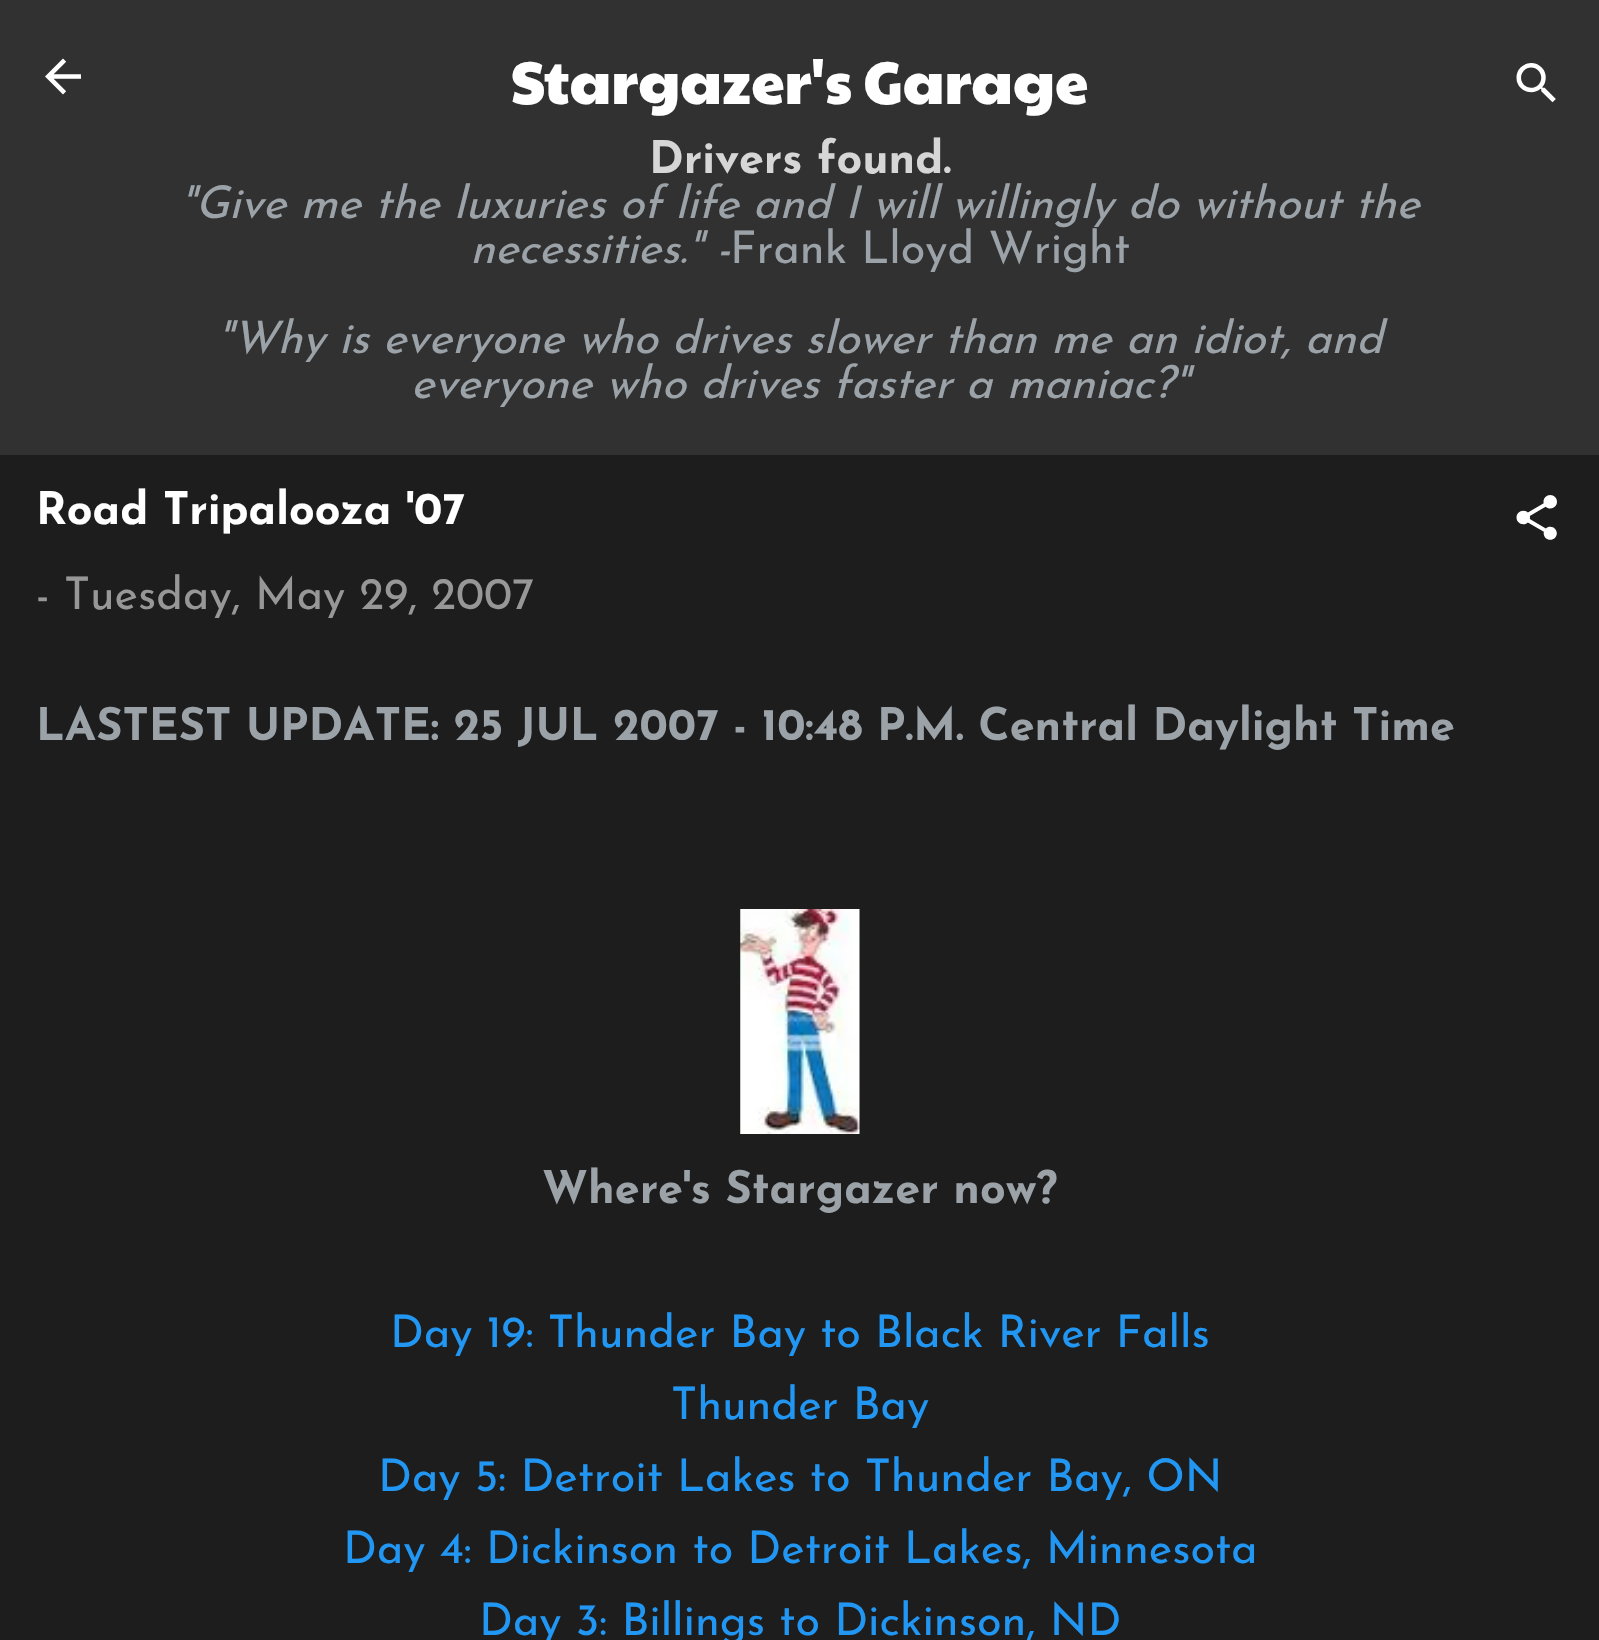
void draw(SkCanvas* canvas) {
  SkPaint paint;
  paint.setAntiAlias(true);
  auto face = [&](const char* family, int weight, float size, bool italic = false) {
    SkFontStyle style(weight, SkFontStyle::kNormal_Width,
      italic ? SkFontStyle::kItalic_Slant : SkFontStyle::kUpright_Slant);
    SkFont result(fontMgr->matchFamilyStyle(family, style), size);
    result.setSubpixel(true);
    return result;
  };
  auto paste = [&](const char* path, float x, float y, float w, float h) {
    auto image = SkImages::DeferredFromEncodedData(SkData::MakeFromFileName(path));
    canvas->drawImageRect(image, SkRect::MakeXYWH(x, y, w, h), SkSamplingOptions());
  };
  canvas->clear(0xff313131);
  paste("img/1.png", 45, 58, 36, 37);
  paste("img/2.png", 1516, 63, 40, 40);
  paint.setColor(0xff1d1d1d);
  canvas->drawRect(SkRect::MakeXYWH(0, 455, 1599, 1185), paint);
  paste("img/3.png", 1516, 495, 41, 45);
  paste("img/4.png", 740, 909, 120, 225);
  auto f0 = face("Paytone One", 400, 60);
  paint.setColor(0xffffffff);
  canvas->drawString("Stargazer's Garage", 511, 104, f0, paint);
  auto f1 = face("Josefin Sans", 700, 45);
  paint.setColor(0xffd6d6d6);
  canvas->drawString("Drivers found.", 649, 173, f1, paint);
  auto f2 = face("Josefin Sans", 400, 45, true);
  paint.setColor(0xff9ba2a8);
  canvas->drawString("\"Give me the luxuries of life and I will willingly do without the", 180, 218, f2, paint);
  canvas->drawString("necessities.\" -", 470, 263, f2, paint);
  auto f3 = face("Josefin Sans", 400, 45);
  canvas->drawString("Frank Lloyd Wright", 730, 263, f3, paint);
  canvas->drawString("\"Why is everyone who drives slower than me an idiot, and", 217, 353, f2, paint);
  canvas->drawString("everyone who drives faster a maniac?\"", 411, 398, f2, paint);
  paint.setColor(0xffffffff);
  canvas->drawString("Road Tripalooza '07", 36, 524, f1, paint);
  paint.setColor(0xff979797);
  canvas->drawString("- Tuesday, May 29, 2007", 36, 609, f3, paint);
  paint.setColor(0xff9ba2a8);
  canvas->drawString("LASTEST UPDATE: 25 JUL 2007 - 10:48 P.M. Central Daylight Time", 36, 740, f1, paint);
  canvas->drawString("Where's Stargazer now?", 542, 1203, f1, paint);
  paint.setColor(0xff2196f3);
  {
    const struct { const char* s; float x, y; } items[] = {
      {"Day 19: Thunder Bay to Black River Falls", 390, 1347},
      {"Thunder Bay", 671, 1419},
      {"Day 5: Detroit Lakes to Thunder Bay, ON", 378, 1491},
      {"Day 4: Dickinson to Detroit Lakes, Minnesota", 343, 1563},
      {"Day 3: Billings to Dickinson, ND", 479, 1635},
    };
    for (auto [s, x, y] : items) {
      canvas->drawString(s, x, y, f3, paint);
    }
  }
}
